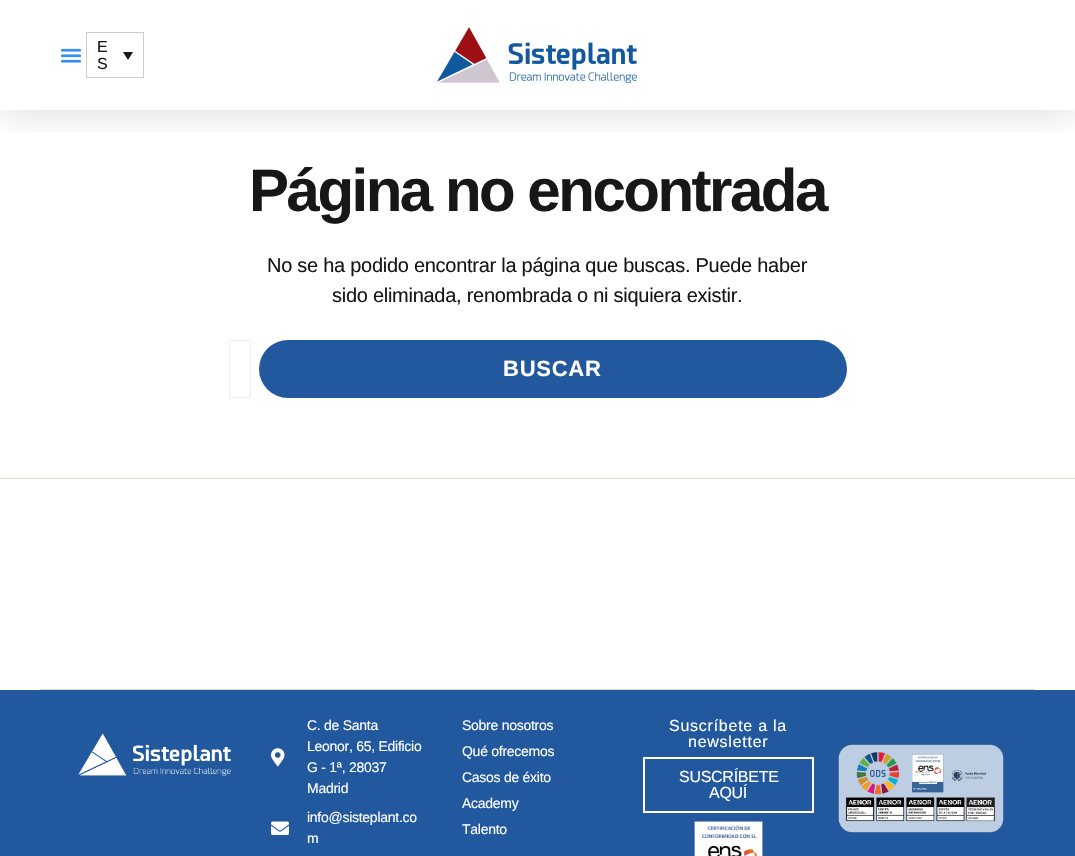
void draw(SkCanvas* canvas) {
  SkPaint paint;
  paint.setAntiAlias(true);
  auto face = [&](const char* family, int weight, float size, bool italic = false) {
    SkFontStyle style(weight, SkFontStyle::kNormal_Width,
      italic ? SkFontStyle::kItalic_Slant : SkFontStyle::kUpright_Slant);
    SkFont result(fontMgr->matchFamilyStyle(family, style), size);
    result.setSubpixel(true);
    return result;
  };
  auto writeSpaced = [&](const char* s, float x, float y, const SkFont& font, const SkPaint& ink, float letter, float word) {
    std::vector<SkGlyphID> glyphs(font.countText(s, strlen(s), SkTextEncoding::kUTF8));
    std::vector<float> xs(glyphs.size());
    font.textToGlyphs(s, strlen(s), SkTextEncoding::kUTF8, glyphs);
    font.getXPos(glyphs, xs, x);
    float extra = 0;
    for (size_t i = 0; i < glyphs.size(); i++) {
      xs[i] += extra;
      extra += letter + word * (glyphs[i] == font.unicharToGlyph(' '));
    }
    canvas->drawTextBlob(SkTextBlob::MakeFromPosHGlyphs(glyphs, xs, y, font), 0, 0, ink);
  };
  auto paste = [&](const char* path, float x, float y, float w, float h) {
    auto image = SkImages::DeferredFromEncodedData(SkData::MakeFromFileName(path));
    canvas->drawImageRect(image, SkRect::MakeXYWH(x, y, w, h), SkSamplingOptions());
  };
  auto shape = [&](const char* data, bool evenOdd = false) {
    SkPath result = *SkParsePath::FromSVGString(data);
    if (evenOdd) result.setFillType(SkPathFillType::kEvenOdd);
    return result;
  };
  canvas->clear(0xffffffff);
  canvas->save();
  canvas->clipRect(SkRect::MakeXYWH(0, 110, 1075, 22));
  paint.setColor(0x26000000);
  paint.setMaskFilter(SkMaskFilter::MakeBlur(kNormal_SkBlurStyle, 20));
  canvas->drawRect(SkRect::MakeXYWH(0, 0, 1075, 110), paint);
  paint.setMaskFilter(nullptr);
  canvas->restore();
  paste("img/1.png", 60, 48, 22, 15);
  paint.setStroke(true);
  paint.setStrokeWidth(1);
  paint.setColor(0xffcdcdcd);
  canvas->drawRect(SkRect::MakeXYWH(86.5f, 32.5f, 57, 45), paint);
  paint.setStroke(false);
  paint.setColor(0xff171717);
  canvas->drawPath(shape("M123 52H133L128 60Z"), paint);
  paste("img/2.png", 437, 27, 200, 56);
  paint.setStroke(true);
  paint.setColor(0xffeeeeee);
  canvas->drawRect(SkRect::MakeXYWH(229.5f, 340.5f, 21, 57), paint);
  paint.setStroke(false);
  paint.setColor(0xff22589e);
  canvas->drawRoundRect(SkRect::MakeXYWH(259, 340, 588, 58), 29, 29, paint);
  {
    const struct { float x, y, w, h; SkColor color; } items[] = {
      {0, 478, 1075, 1, 0xffdcd7ca},
      {40, 689, 995, 1, 0xffdcd7ca},
      {0, 690, 1075, 166, 0xff22589e},
    };
    for (auto [x, y, w, h, color] : items) {
      paint.setColor(color);
      canvas->drawRect(SkRect::MakeXYWH(x, y, w, h), paint);
    }
  }
  paste("img/3.png", 78, 733, 153, 43);
  paste("img/4.png", 271, 748, 14, 19);
  paste("img/5.png", 271, 821, 18, 14);
  paint.setStroke(true);
  paint.setStrokeWidth(2);
  paint.setColor(0xffffffff);
  canvas->drawRect(SkRect::MakeXYWH(644, 758, 169, 54), paint);
  paste("img/6.png", 694, 821, 69, 35);
  paste("img/7.png", 838, 744, 166, 89);
  auto f0 = face("Liberation Sans", 400, 16);
  paint.setStroke(false);
  paint.setColor(0xff171717);
  writeSpaced("E", 97, 52, f0, paint, -0.27f, 0);
  writeSpaced("S", 97, 69, f0, paint, -0.27f, 0);
  auto f1 = face("Liberation Sans", 700, 60);
  writeSpaced("Página no encontrada", 249, 211, f1, paint, -2.5f, 0);
  auto f2 = face("Liberation Sans", 400, 20);
  writeSpaced("No se ha podido encontrar la página que buscas. Puede haber", 267, 272, f2, paint, -0.27f, 0);
  writeSpaced("sido eliminada, renombrada o ni siquiera existir.", 332, 302, f2, paint, -0.27f, 0);
  auto f3 = face("Liberation Sans", 700, 22);
  paint.setColor(0xffffffff);
  writeSpaced("BUSCAR", 503, 376, f3, paint, 0.75f, 0);
  auto f4 = face("Liberation Sans", 400, 14);
  {
    const struct { const char* s; float x, y; } items[] = {
      {"C. de Santa", 307, 730},
      {"Leonor, 65, Edificio", 307, 751},
      {"G - 1ª, 28037", 307, 772},
      {"Madrid", 307, 793},
      {"info@sisteplant.co", 307, 822},
      {"m", 307, 843},
      {"Sobre nosotros", 462, 730},
      {"Qué ofrecemos", 462, 756},
      {"Casos de éxito", 462, 782},
      {"Academy", 462, 808},
      {"Talento", 462, 834},
    };
    for (auto [s, x, y] : items) {
      writeSpaced(s, x, y, f4, paint, -0.27f, 0);
    }
  }
  writeSpaced("Suscríbete a la", 669, 731, f0, paint, 0.75f, 0);
  writeSpaced("newsletter", 688, 747, f0, paint, 0.75f, 0);
  writeSpaced("SUSCRÍBETE", 679, 782, f0, paint, -0.27f, 0);
  writeSpaced("AQUÍ", 709, 798, f0, paint, -0.27f, 0);
}
